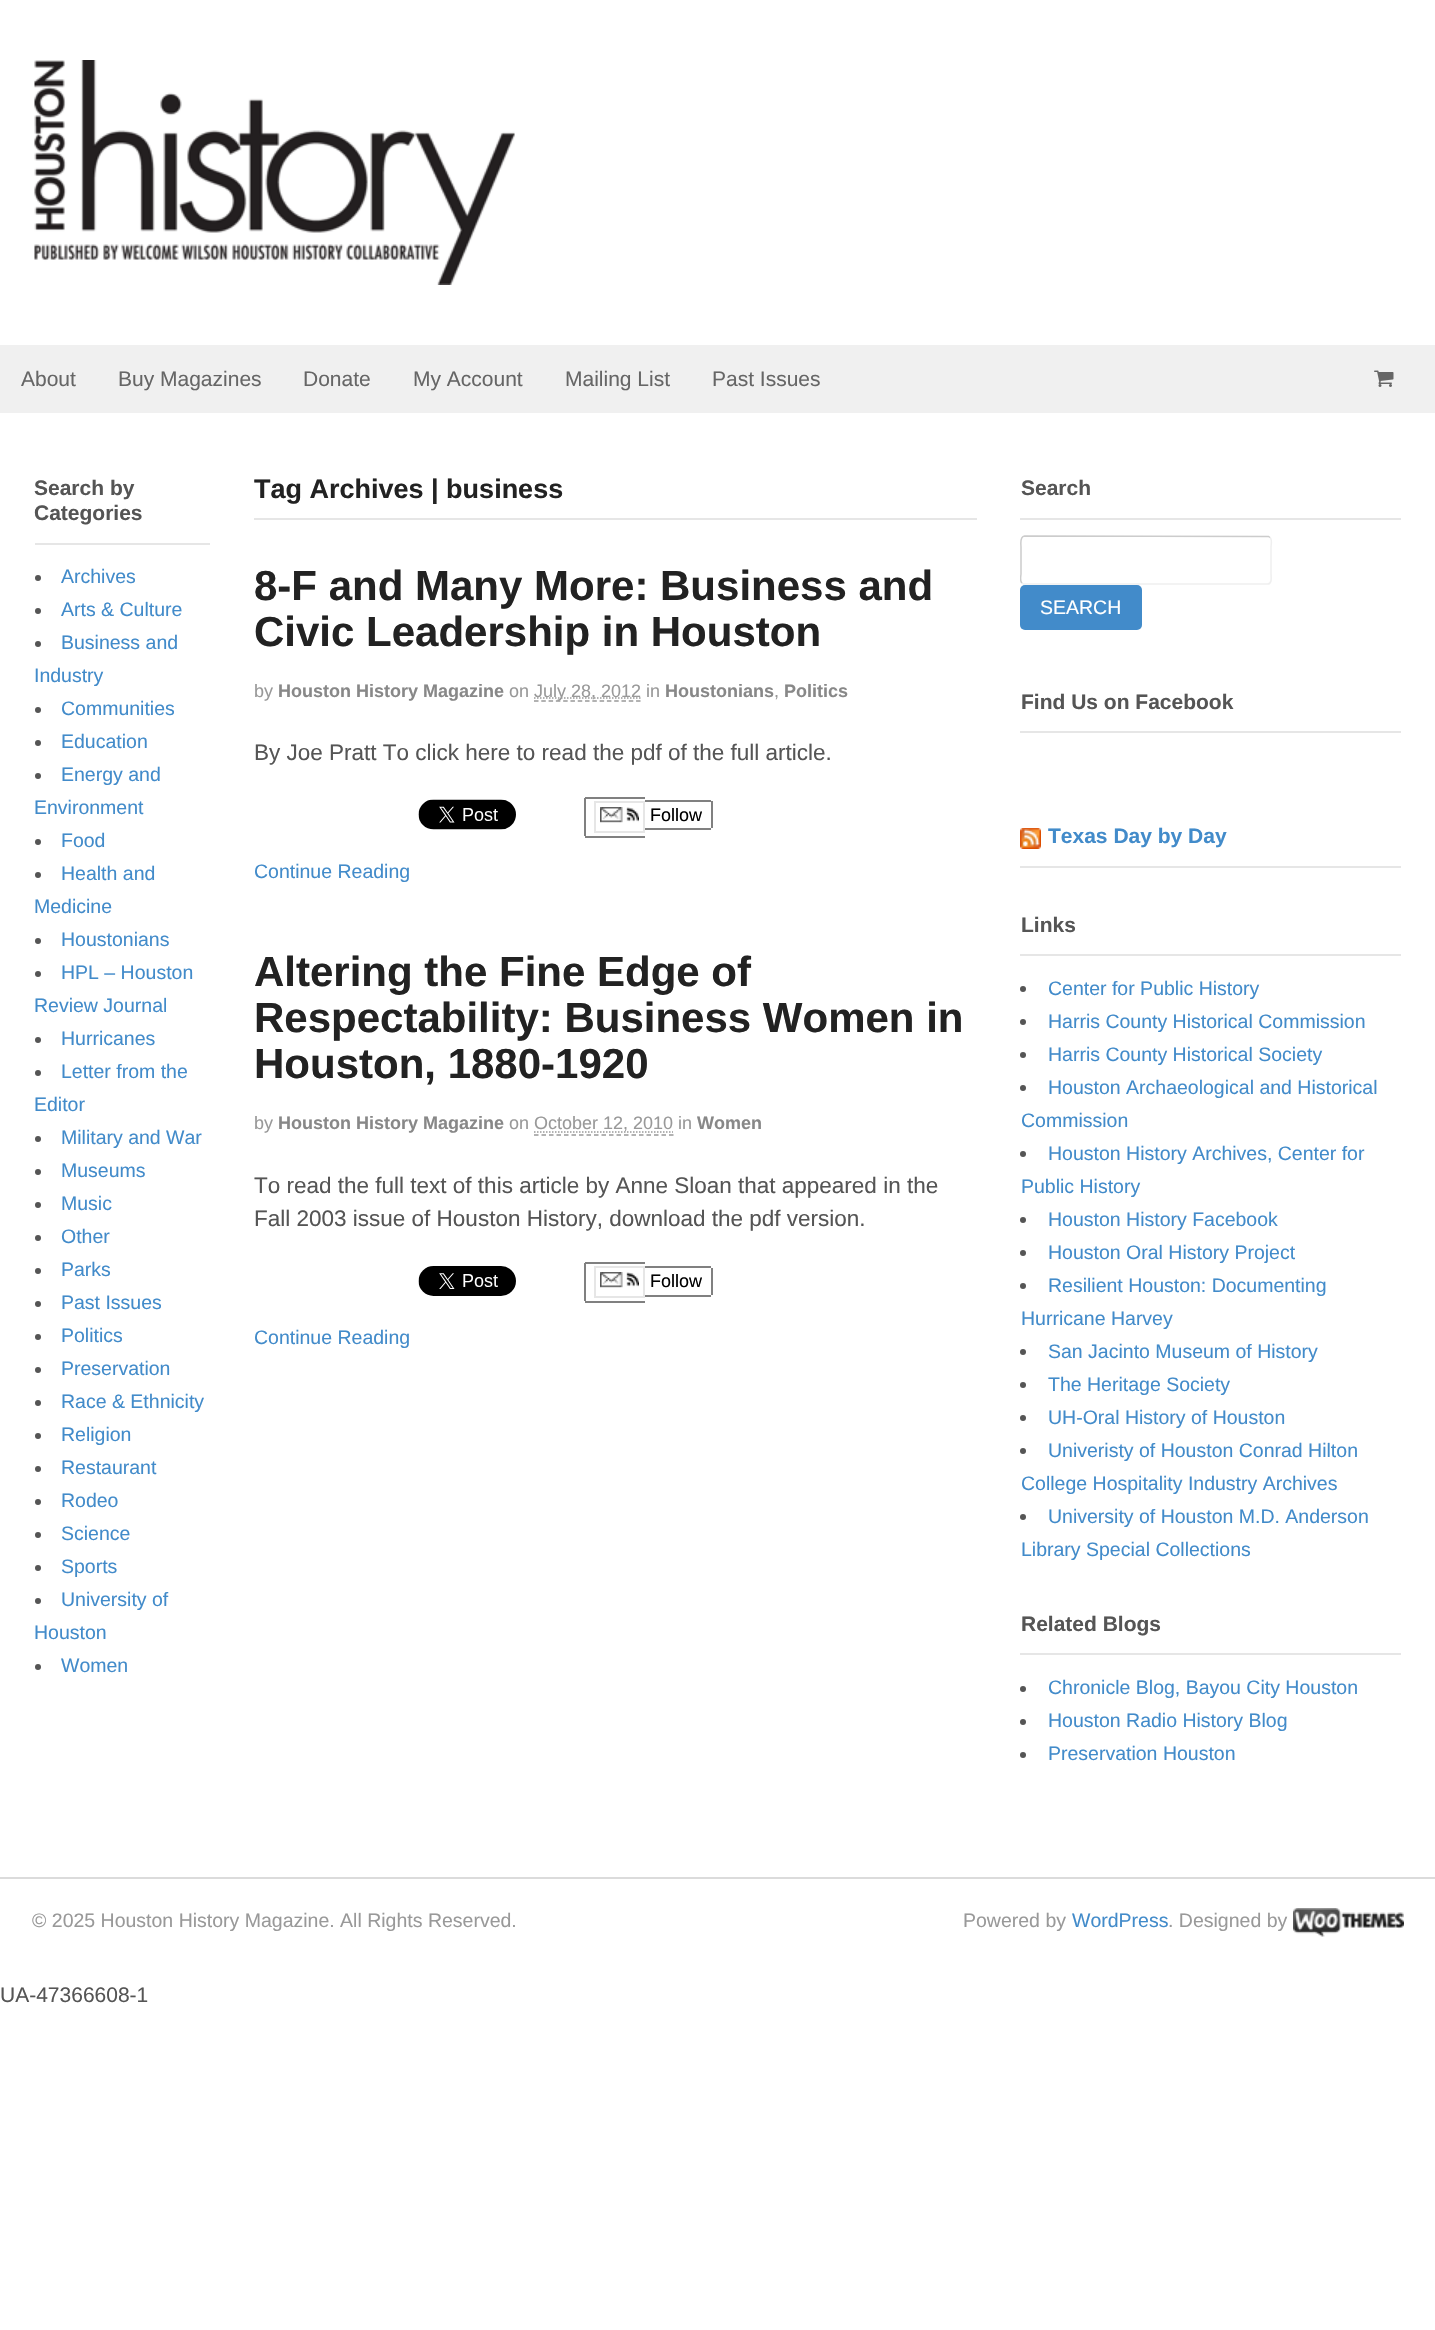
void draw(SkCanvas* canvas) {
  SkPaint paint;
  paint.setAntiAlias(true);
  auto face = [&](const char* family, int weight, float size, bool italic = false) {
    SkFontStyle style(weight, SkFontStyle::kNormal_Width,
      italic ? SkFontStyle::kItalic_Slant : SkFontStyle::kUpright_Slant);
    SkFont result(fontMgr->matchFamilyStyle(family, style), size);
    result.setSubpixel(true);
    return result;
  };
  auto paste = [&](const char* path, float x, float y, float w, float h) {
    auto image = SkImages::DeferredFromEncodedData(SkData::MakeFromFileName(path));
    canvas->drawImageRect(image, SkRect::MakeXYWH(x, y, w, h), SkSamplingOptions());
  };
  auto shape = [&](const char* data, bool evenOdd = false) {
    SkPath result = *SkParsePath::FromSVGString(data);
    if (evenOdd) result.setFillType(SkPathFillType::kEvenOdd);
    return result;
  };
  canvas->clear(0xffffffff);
  paste("img/1.png", 34, 60, 481, 225);
  paint.setColor(0xfff0f0f0);
  canvas->drawRect(SkRect::MakeXYWH(0, 345, 1435, 68), paint);
  paste("img/2.png", 1374, 370, 20, 17);
  paint.setColor(0xffe6e6e6);
  canvas->drawRect(SkRect::MakeXYWH(35, 543, 175, 2), paint);
  paint.setColor(0xff555555);
  canvas->drawCircle(38, 578, 3, paint);
  canvas->drawCircle(38, 611, 3, paint);
  canvas->drawCircle(38, 644, 3, paint);
  canvas->drawCircle(38, 710, 3, paint);
  canvas->drawCircle(38, 743, 3, paint);
  canvas->drawCircle(38, 776, 3, paint);
  canvas->drawCircle(38, 842, 3, paint);
  canvas->drawCircle(38, 875, 3, paint);
  canvas->drawCircle(38, 941, 3, paint);
  canvas->drawCircle(38, 974, 3, paint);
  canvas->drawCircle(38, 1040, 3, paint);
  canvas->drawCircle(38, 1073, 3, paint);
  canvas->drawCircle(38, 1139, 3, paint);
  canvas->drawCircle(38, 1172, 3, paint);
  canvas->drawCircle(38, 1205, 3, paint);
  canvas->drawCircle(38, 1238, 3, paint);
  canvas->drawCircle(38, 1271, 3, paint);
  canvas->drawCircle(38, 1304, 3, paint);
  canvas->drawCircle(38, 1337, 3, paint);
  canvas->drawCircle(38, 1370, 3, paint);
  canvas->drawCircle(38, 1403, 3, paint);
  canvas->drawCircle(38, 1436, 3, paint);
  canvas->drawCircle(38, 1469, 3, paint);
  canvas->drawCircle(38, 1502, 3, paint);
  canvas->drawCircle(38, 1535, 3, paint);
  canvas->drawCircle(38, 1568, 3, paint);
  canvas->drawCircle(38, 1601, 3, paint);
  canvas->drawCircle(38, 1667, 3, paint);
  paint.setColor(0xffe6e6e6);
  canvas->drawRect(SkRect::MakeXYWH(254, 518, 723, 2), paint);
  paint.setStroke(true);
  paint.setStrokeWidth(1.5f);
  paint.setColor(0xff999999);
  paint.setPathEffect(SkDashPathEffect::Make({{4.5f, 2.79f}}, 0));
  canvas->drawPath(shape("M534 701H640.5"), paint);
  paint.setPathEffect(nullptr);
  paint.setPathEffect(SkDashPathEffect::Make({{1.5f, 1.5f}}, 0));
  canvas->drawPath(shape("M534 698H641"), paint);
  paint.setPathEffect(nullptr);
  paste("img/3.png", 418, 799, 98, 31);
  paint.setStrokeWidth(2);
  paint.setColor(0xffe6e6e6);
  canvas->drawRect(SkRect::MakeXYWH(595, 802, 49, 30), paint);
  paste("img/4.png", 600, 807, 39, 16);
  paint.setStroke(false);
  {
    const struct { float x, y, w, h; SkColor color; } items[] = {
      {585, 797, 60, 2, 0xff808080},
      {585, 836, 60, 2, 0xff808080},
      {584, 798, 2, 38, 0xff808080},
      {645, 800, 66, 2, 0xff808080},
      {711, 801, 2, 27, 0xff808080},
      {645, 828, 66, 2, 0xff808080},
    };
    for (auto [x, y, w, h, color] : items) {
      paint.setColor(color);
      canvas->drawRect(SkRect::MakeXYWH(x, y, w, h), paint);
    }
  }
  paint.setStroke(true);
  paint.setStrokeWidth(1.5f);
  paint.setColor(0xff999999);
  paint.setPathEffect(SkDashPathEffect::Make({{4.5f, 3}}, 0));
  canvas->drawPath(shape("M534 1135H673.5"), paint);
  paint.setPathEffect(nullptr);
  paint.setPathEffect(SkDashPathEffect::Make({{1.5f, 1.5f}}, 0));
  canvas->drawPath(shape("M534 1132H673"), paint);
  paint.setPathEffect(nullptr);
  paste("img/5.png", 418, 1266, 98, 30);
  paint.setStrokeWidth(2);
  paint.setColor(0xffe6e6e6);
  canvas->drawRect(SkRect::MakeXYWH(595, 1267, 49, 30), paint);
  paste("img/4.png", 600, 1272, 39, 16);
  paint.setStroke(false);
  {
    const struct { float x, y, w, h; SkColor color; } items[] = {
      {585, 1262, 60, 2, 0xff808080},
      {585, 1301, 60, 2, 0xff808080},
      {584, 1263, 2, 38, 0xff808080},
      {645, 1266, 66, 2, 0xff808080},
      {711, 1268, 2, 27, 0xff808080},
      {645, 1295, 66, 2, 0xff808080},
      {1020, 518, 381, 2, 0xffe6e6e6},
    };
    for (auto [x, y, w, h, color] : items) {
      paint.setColor(color);
      canvas->drawRect(SkRect::MakeXYWH(x, y, w, h), paint);
    }
  }
  paint.setStroke(true);
  paint.setStrokeWidth(1.5f);
  paint.setColor(0xffefefef);
  canvas->drawPath(shape("M1270 537.5C1272.5 539.5 1271 545 1271 547V574C1271 576.5 1272.5 584 1267.5 584H1023.5L1022 583"), paint);
  canvas->save();
  canvas->clipRect(SkRect::MakeXYWH(1020, 476, 381, 1341));
  paint.setColor(0xffcccccc);
  canvas->drawPath(shape("M1022 583C1019.5 581 1021 575.5 1021 574V547C1021 544 1019.5 536.5 1024.5 536L1268.5 536.5L1270 537.5"), paint);
  canvas->restore();
  paint.setStroke(false);
  paint.setColor(0xff428bca);
  canvas->drawRoundRect(SkRect::MakeXYWH(1020, 585, 122, 45), 5, 5, paint);
  paint.setColor(0xffe6e6e6);
  canvas->drawRect(SkRect::MakeXYWH(1020, 731, 381, 2), paint);
  canvas->drawRect(SkRect::MakeXYWH(1020, 866, 381, 2), paint);
  paste("img/6.png", 1020, 828, 21, 21);
  canvas->drawRect(SkRect::MakeXYWH(1020, 954, 381, 2), paint);
  paint.setColor(0xff555555);
  canvas->drawCircle(1023, 989, 3, paint);
  canvas->drawCircle(1023, 1022, 3, paint);
  canvas->drawCircle(1023, 1055, 3, paint);
  canvas->drawCircle(1023, 1088, 3, paint);
  canvas->drawCircle(1023, 1154, 3, paint);
  canvas->drawCircle(1023, 1220, 3, paint);
  canvas->drawCircle(1023, 1253, 3, paint);
  canvas->drawCircle(1023, 1286, 3, paint);
  canvas->drawCircle(1023, 1352, 3, paint);
  canvas->drawCircle(1023, 1385, 3, paint);
  canvas->drawCircle(1023, 1418, 3, paint);
  canvas->drawCircle(1023, 1451, 3, paint);
  canvas->drawCircle(1023, 1517, 3, paint);
  paint.setColor(0xffe6e6e6);
  canvas->drawRect(SkRect::MakeXYWH(1020, 1653, 381, 2), paint);
  paint.setColor(0xff555555);
  canvas->drawCircle(1023, 1689, 3, paint);
  canvas->drawCircle(1023, 1722, 3, paint);
  canvas->drawCircle(1023, 1755, 3, paint);
  paint.setColor(0xffdbdbdb);
  canvas->drawRect(SkRect::MakeXYWH(0, 1877, 1435, 2), paint);
  paste("img/7.png", 1293, 1908, 111, 29);
  auto f0 = face("Liberation Sans", 400, 21);
  paint.setColor(0xff666666);
  {
    const struct { const char* s; float x, y; } items[] = {
      {"About", 21, 386},
      {"Buy Magazines", 118, 386},
      {"Donate", 303, 386},
      {"My Account", 413, 386},
      {"Mailing List", 565, 386},
      {"Past Issues", 712, 386},
    };
    for (auto [s, x, y] : items) {
      canvas->drawString(s, x, y, f0, paint);
    }
  }
  auto f1 = face("Liberation Sans", 700, 21);
  paint.setColor(0xff555555);
  canvas->drawString("Search by", 34, 495, f1, paint);
  canvas->drawString("Categories", 34, 520, f1, paint);
  auto f2 = face("Liberation Sans", 400, 19.5f);
  paint.setColor(0xff428bca);
  {
    const struct { const char* s; float x, y; } items[] = {
      {"Archives", 61, 583},
      {"Arts & Culture", 61, 616},
      {"Business and", 61, 649},
      {"Industry", 34, 682},
      {"Communities", 61, 715},
      {"Education", 61, 748},
      {"Energy and", 61, 781},
      {"Environment", 34, 814},
      {"Food", 61, 847},
      {"Health and", 61, 880},
      {"Medicine", 34, 913},
      {"Houstonians", 61, 946},
      {"HPL – Houston", 61, 979},
      {"Review Journal", 34, 1012},
      {"Hurricanes", 61, 1045},
      {"Letter from the", 61, 1078},
      {"Editor", 34, 1111},
      {"Military and War", 61, 1144},
      {"Museums", 61, 1177},
      {"Music", 61, 1210},
      {"Other", 61, 1243},
      {"Parks", 61, 1276},
      {"Past Issues", 61, 1309},
      {"Politics", 61, 1342},
      {"Preservation", 61, 1375},
      {"Race & Ethnicity", 61, 1408},
      {"Religion", 61, 1441},
      {"Restaurant", 61, 1474},
      {"Rodeo", 61, 1507},
      {"Science", 61, 1540},
      {"Sports", 61, 1573},
      {"University of", 61, 1606},
      {"Houston", 34, 1639},
      {"Women", 61, 1672},
    };
    for (auto [s, x, y] : items) {
      canvas->drawString(s, x, y, f2, paint);
    }
  }
  auto f3 = face("Liberation Sans", 700, 27);
  paint.setColor(0xff222222);
  canvas->drawString("Tag Archives | business", 254, 498, f3, paint);
  auto f4 = face("Liberation Sans", 700, 42);
  canvas->drawString("8-F and Many More: Business and", 254, 600, f4, paint);
  canvas->drawString("Civic Leadership in Houston", 254, 646, f4, paint);
  auto f5 = face("Liberation Sans", 400, 18);
  paint.setColor(0xff999999);
  canvas->drawString("by", 254, 697, f5, paint);
  auto f6 = face("Liberation Sans", 700, 18);
  paint.setColor(0xff888888);
  canvas->drawString("Houston History Magazine", 278, 697, f6, paint);
  paint.setColor(0xff999999);
  canvas->drawString("on", 509, 697, f5, paint);
  canvas->drawString("July 28, 2012 in", 534, 697, f5, paint);
  paint.setColor(0xff888888);
  canvas->drawString("Houstonians", 665, 697, f6, paint);
  paint.setColor(0xff999999);
  canvas->drawString(",", 774, 697, f5, paint);
  paint.setColor(0xff888888);
  canvas->drawString("Politics", 784, 697, f6, paint);
  auto f7 = face("Liberation Sans", 400, 22.5f);
  paint.setColor(0xff555555);
  canvas->drawString("By Joe Pratt To click here to read the pdf of the full article.", 254, 760, f7, paint);
  paint.setColor(0xff000000);
  canvas->drawString("Follow", 650, 821, f5, paint);
  paint.setColor(0xff428bca);
  canvas->drawString("Continue Reading", 254, 878, f2, paint);
  paint.setColor(0xff222222);
  {
    const struct { const char* s; float x, y; } items[] = {
      {"Altering the Fine Edge of", 254, 986},
      {"Respectability: Business Women in", 254, 1032},
      {"Houston, 1880-1920", 254, 1078},
    };
    for (auto [s, x, y] : items) {
      canvas->drawString(s, x, y, f4, paint);
    }
  }
  paint.setColor(0xff999999);
  canvas->drawString("by", 254, 1129, f5, paint);
  paint.setColor(0xff888888);
  canvas->drawString("Houston History Magazine", 278, 1129, f6, paint);
  paint.setColor(0xff999999);
  canvas->drawString("on", 509, 1129, f5, paint);
  canvas->drawString("October 12, 2010 in", 534, 1129, f5, paint);
  paint.setColor(0xff888888);
  canvas->drawString("Women", 697, 1129, f6, paint);
  paint.setColor(0xff555555);
  canvas->drawString("To read the full text of this article by Anne Sloan that appeared in the", 254, 1193, f7, paint);
  canvas->drawString("Fall 2003 issue of Houston History, download the pdf version.", 254, 1226, f7, paint);
  paint.setColor(0xff000000);
  canvas->drawString("Follow", 650, 1287, f5, paint);
  paint.setColor(0xff428bca);
  canvas->drawString("Continue Reading", 254, 1344, f2, paint);
  paint.setColor(0xff555555);
  canvas->drawString("Search", 1021, 495, f1, paint);
  paint.setColor(0xffffffff);
  canvas->drawString("SEARCH", 1040, 614, f2, paint);
  paint.setColor(0xff555555);
  canvas->drawString("Find Us on Facebook", 1021, 709, f1, paint);
  paint.setColor(0xff428bca);
  canvas->drawString("Texas Day by Day", 1048, 843, f1, paint);
  paint.setColor(0xff555555);
  canvas->drawString("Links", 1021, 932, f1, paint);
  paint.setColor(0xff428bca);
  {
    const struct { const char* s; float x, y; } items[] = {
      {"Center for Public History", 1048, 995},
      {"Harris County Historical Commission", 1048, 1028},
      {"Harris County Historical Society", 1048, 1061},
      {"Houston Archaeological and Historical", 1048, 1094},
      {"Commission", 1021, 1127},
      {"Houston History Archives, Center for", 1048, 1160},
      {"Public History", 1021, 1193},
      {"Houston History Facebook", 1048, 1226},
      {"Houston Oral History Project", 1048, 1259},
      {"Resilient Houston: Documenting", 1048, 1292},
      {"Hurricane Harvey", 1021, 1325},
      {"San Jacinto Museum of History", 1048, 1358},
      {"The Heritage Society", 1048, 1391},
      {"UH-Oral History of Houston", 1048, 1424},
      {"Univeristy of Houston Conrad Hilton", 1048, 1457},
      {"College Hospitality Industry Archives", 1021, 1490},
      {"University of Houston M.D. Anderson", 1048, 1523},
      {"Library Special Collections", 1021, 1556},
    };
    for (auto [s, x, y] : items) {
      canvas->drawString(s, x, y, f2, paint);
    }
  }
  paint.setColor(0xff555555);
  canvas->drawString("Related Blogs", 1021, 1631, f1, paint);
  paint.setColor(0xff428bca);
  {
    const struct { const char* s; float x, y; } items[] = {
      {"Chronicle Blog, Bayou City Houston", 1048, 1694},
      {"Houston Radio History Blog", 1048, 1727},
      {"Preservation Houston", 1048, 1760},
    };
    for (auto [s, x, y] : items) {
      canvas->drawString(s, x, y, f2, paint);
    }
  }
  paint.setColor(0xff999999);
  canvas->drawString("© 2025 Houston History Magazine. All Rights Reserved.", 32, 1927, f2, paint);
  canvas->drawString("Powered by", 963, 1927, f2, paint);
  paint.setColor(0xff428bca);
  canvas->drawString("WordPress", 1072, 1927, f2, paint);
  paint.setColor(0xff999999);
  canvas->drawString(". Designed by", 1168, 1927, f2, paint);
  paint.setColor(0xff555555);
  canvas->drawString("UA-47366608-1", 0, 2002, f0, paint);
}
